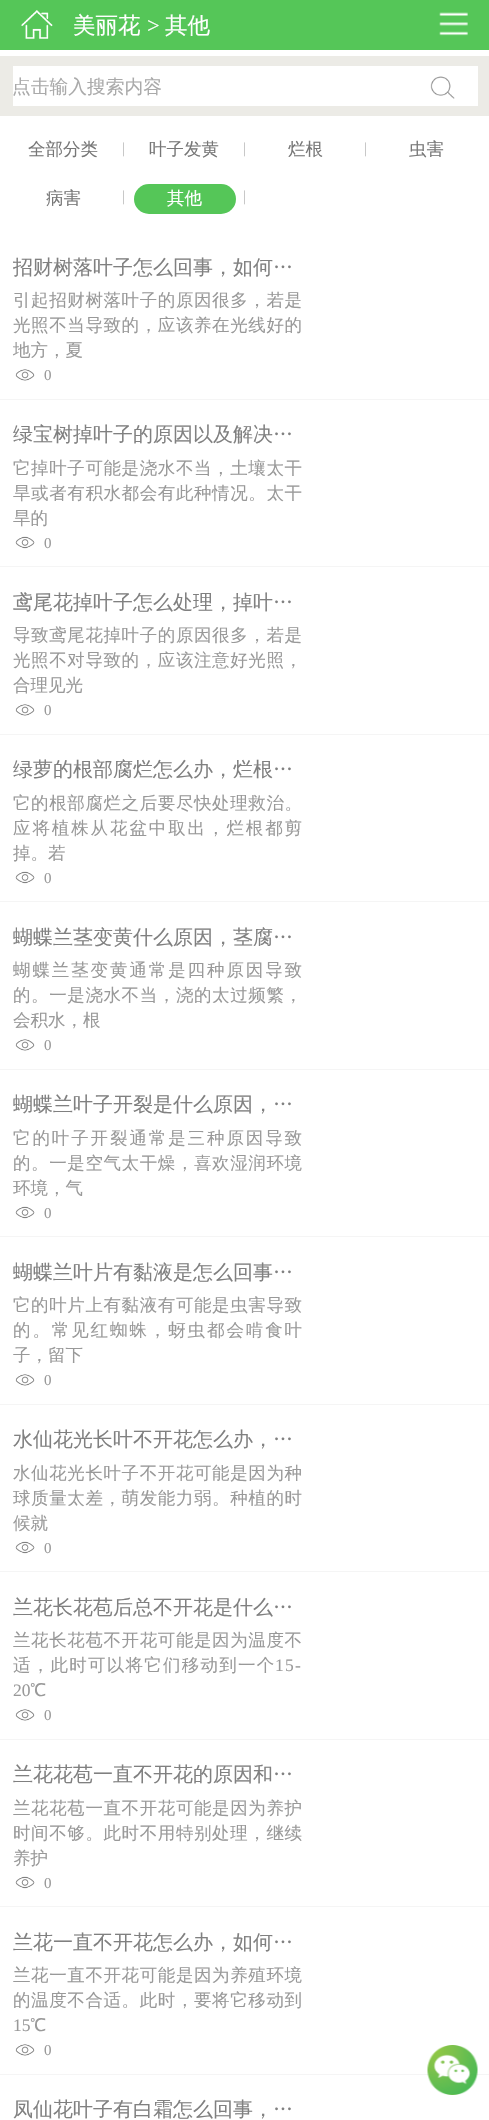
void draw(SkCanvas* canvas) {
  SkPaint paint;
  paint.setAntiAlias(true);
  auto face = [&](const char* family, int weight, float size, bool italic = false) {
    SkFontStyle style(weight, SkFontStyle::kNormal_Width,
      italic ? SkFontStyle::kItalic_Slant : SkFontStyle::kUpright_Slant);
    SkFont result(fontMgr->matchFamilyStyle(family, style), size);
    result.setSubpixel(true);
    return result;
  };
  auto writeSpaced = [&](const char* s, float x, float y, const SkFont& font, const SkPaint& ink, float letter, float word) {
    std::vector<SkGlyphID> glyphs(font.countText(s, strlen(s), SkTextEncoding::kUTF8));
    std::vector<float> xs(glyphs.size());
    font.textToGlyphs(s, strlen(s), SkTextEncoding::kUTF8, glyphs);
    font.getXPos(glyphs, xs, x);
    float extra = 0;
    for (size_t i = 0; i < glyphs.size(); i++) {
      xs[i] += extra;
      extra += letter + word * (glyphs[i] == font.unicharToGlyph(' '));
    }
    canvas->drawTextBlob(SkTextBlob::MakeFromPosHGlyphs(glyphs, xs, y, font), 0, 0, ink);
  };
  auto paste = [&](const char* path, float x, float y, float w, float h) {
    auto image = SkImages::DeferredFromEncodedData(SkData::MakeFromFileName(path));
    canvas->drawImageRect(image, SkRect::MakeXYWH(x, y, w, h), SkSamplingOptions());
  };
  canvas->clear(0xffffffff);
  paint.setColor(0xff55c658);
  canvas->drawRect(SkRect::MakeXYWH(0, 0, 489, 50), paint);
  paste("img/1.png", 21, 10, 32, 29);
  paste("img/2.png", 439, 12, 29, 24);
  paint.setColor(0xffecebe6);
  canvas->drawRect(SkRect::MakeXYWH(0, 56, 489, 60), paint);
  paint.setColor(0xffffffff);
  canvas->drawRect(SkRect::MakeXYWH(13, 66, 465, 40), paint);
  paste("img/3.png", 430, 76, 25, 23);
  paint.setColor(0xff55c658);
  canvas->drawRoundRect(SkRect::MakeXYWH(134, 184, 102, 30), 15, 15, paint);
  paste("img/4.png", 15, 369, 20, 12);
  paint.setColor(0xfff5f5f5);
  canvas->drawRect(SkRect::MakeXYWH(0, 399, 489, 1), paint);
  paste("img/5.png", 15, 536, 20, 13);
  canvas->drawRect(SkRect::MakeXYWH(0, 566, 489, 1), paint);
  paste("img/6.png", 15, 704, 20, 12);
  canvas->drawRect(SkRect::MakeXYWH(0, 734, 489, 1), paint);
  paste("img/5.png", 15, 871, 20, 13);
  canvas->drawRect(SkRect::MakeXYWH(0, 901, 489, 1), paint);
  paste("img/6.png", 15, 1039, 20, 12);
  canvas->drawRect(SkRect::MakeXYWH(0, 1069, 489, 1), paint);
  paste("img/5.png", 15, 1206, 20, 13);
  canvas->drawRect(SkRect::MakeXYWH(0, 1236, 489, 1), paint);
  paste("img/4.png", 15, 1374, 20, 12);
  canvas->drawRect(SkRect::MakeXYWH(0, 1404, 489, 1), paint);
  paste("img/5.png", 15, 1541, 20, 13);
  canvas->drawRect(SkRect::MakeXYWH(0, 1571, 489, 1), paint);
  paste("img/4.png", 15, 1709, 20, 12);
  canvas->drawRect(SkRect::MakeXYWH(0, 1739, 489, 1), paint);
  paste("img/5.png", 15, 1876, 20, 13);
  canvas->drawRect(SkRect::MakeXYWH(0, 1906, 489, 1), paint);
  paste("img/7.png", 15, 2044, 20, 12);
  canvas->drawRect(SkRect::MakeXYWH(0, 2074, 489, 1), paint);
  paste("img/8.png", 427, 2045, 51, 50);
  auto f0 = face("WenQuanYi Zen Hei", 500, 22.5f);
  paint.setColor(0xffffffff);
  canvas->drawString("美丽花", 73, 33, f0, paint);
  auto f1 = face("Liberation Serif", 400, 22.5f);
  canvas->drawString(">", 147, 33, f1, paint);
  canvas->drawString("其他", 165, 33, f0, paint);
  auto f2 = face("WenQuanYi Zen Hei", 500, 18.75f);
  paint.setColor(0xffaaaaaa);
  canvas->drawString("点击输入搜索内容", 12, 93, f2, paint);
  auto f3 = face("WenQuanYi Zen Hei", 500, 17.5f);
  paint.setColor(0xff777777);
  canvas->drawString("全部分类", 28, 155, f3, paint);
  auto f4 = face("Liberation Serif", 400, 15);
  paint.setColor(0xffbbbbbb);
  canvas->drawString("|", 122, 153, f4, paint);
  paint.setColor(0xff777777);
  canvas->drawString("叶子发黄", 149, 155, f3, paint);
  paint.setColor(0xffbbbbbb);
  canvas->drawString("|", 243, 153, f4, paint);
  paint.setColor(0xff777777);
  canvas->drawString("烂根", 288, 155, f3, paint);
  paint.setColor(0xffbbbbbb);
  canvas->drawString("|", 364, 153, f4, paint);
  paint.setColor(0xff777777);
  canvas->drawString("虫害", 409, 155, f3, paint);
  canvas->drawString("病害", 46, 204, f3, paint);
  paint.setColor(0xffbbbbbb);
  canvas->drawString("|", 122, 201, f4, paint);
  paint.setColor(0xffffffff);
  canvas->drawString("其他", 167, 204, f3, paint);
  paint.setColor(0xffbbbbbb);
  canvas->drawString("|", 243, 201, f4, paint);
  auto f5 = face("WenQuanYi Zen Hei", 500, 20);
  paint.setColor(0xff808080);
  canvas->drawString("招财树落叶子怎么回事，如何…", 13, 274, f5, paint);
  paint.setColor(0xff999999);
  writeSpaced("引起招财树落叶子的原因很多，若是", 13, 306, f3, paint, 0.6f, 0);
  writeSpaced("光照不当导致的，应该养在光线好的", 13, 331, f3, paint, 0.6f, 0);
  canvas->drawString("地方，夏", 13, 356, f3, paint);
  canvas->drawString("0", 44, 380, f4, paint);
  paint.setColor(0xff808080);
  canvas->drawString("绿宝树掉叶子的原因以及解决…", 13, 441, f5, paint);
  paint.setColor(0xff999999);
  writeSpaced("它掉叶子可能是浇水不当，土壤太干", 13, 474, f3, paint, 0.6f, 0);
  writeSpaced("旱或者有积水都会有此种情况。太干", 13, 499, f3, paint, 0.6f, 0);
  canvas->drawString("旱的", 13, 524, f3, paint);
  canvas->drawString("0", 44, 548, f4, paint);
  paint.setColor(0xff808080);
  canvas->drawString("鸢尾花掉叶子怎么处理，掉叶…", 13, 609, f5, paint);
  paint.setColor(0xff999999);
  writeSpaced("导致鸢尾花掉叶子的原因很多，若是", 13, 641, f3, paint, 0.6f, 0);
  writeSpaced("光照不对导致的，应该注意好光照，", 13, 666, f3, paint, 0.6f, 0);
  canvas->drawString("合理见光", 13, 691, f3, paint);
  canvas->drawString("0", 44, 715, f4, paint);
  paint.setColor(0xff808080);
  canvas->drawString("绿萝的根部腐烂怎么办，烂根…", 13, 776, f5, paint);
  paint.setColor(0xff999999);
  writeSpaced("它的根部腐烂之后要尽快处理救治。", 13, 809, f3, paint, 0.6f, 0);
  writeSpaced("应将植株从花盆中取出，烂根都剪", 13, 834, f3, paint, 1.9f, 0);
  canvas->drawString("掉。若", 13, 859, f3, paint);
  canvas->drawString("0", 44, 883, f4, paint);
  paint.setColor(0xff808080);
  canvas->drawString("蝴蝶兰茎变黄什么原因，茎腐…", 13, 944, f5, paint);
  paint.setColor(0xff999999);
  writeSpaced("蝴蝶兰茎变黄通常是四种原因导致", 13, 976, f3, paint, 1.9f, 0);
  writeSpaced("的。一是浇水不当，浇的太过频繁，", 13, 1001, f3, paint, 0.6f, 0);
  canvas->drawString("会积水，根", 13, 1026, f3, paint);
  canvas->drawString("0", 44, 1050, f4, paint);
  paint.setColor(0xff808080);
  canvas->drawString("蝴蝶兰叶子开裂是什么原因，…", 13, 1111, f5, paint);
  paint.setColor(0xff999999);
  writeSpaced("它的叶子开裂通常是三种原因导致", 13, 1144, f3, paint, 1.9f, 0);
  writeSpaced("的。一是空气太干燥，喜欢湿润环境", 13, 1169, f3, paint, 0.6f, 0);
  canvas->drawString("环境，气", 13, 1194, f3, paint);
  canvas->drawString("0", 44, 1218, f4, paint);
  paint.setColor(0xff808080);
  canvas->drawString("蝴蝶兰叶片有黏液是怎么回事…", 13, 1279, f5, paint);
  paint.setColor(0xff999999);
  writeSpaced("它的叶片上有黏液有可能是虫害导致", 13, 1311, f3, paint, 0.6f, 0);
  writeSpaced("的。常见红蜘蛛，蚜虫都会啃食叶", 13, 1336, f3, paint, 1.9f, 0);
  canvas->drawString("子，留下", 13, 1361, f3, paint);
  canvas->drawString("0", 44, 1385, f4, paint);
  paint.setColor(0xff808080);
  canvas->drawString("水仙花光长叶不开花怎么办，…", 13, 1446, f5, paint);
  paint.setColor(0xff999999);
  writeSpaced("水仙花光长叶子不开花可能是因为种", 13, 1479, f3, paint, 0.6f, 0);
  writeSpaced("球质量太差，萌发能力弱。种植的时", 13, 1504, f3, paint, 0.6f, 0);
  canvas->drawString("候就", 13, 1529, f3, paint);
  canvas->drawString("0", 44, 1553, f4, paint);
  paint.setColor(0xff808080);
  canvas->drawString("兰花长花苞后总不开花是什么…", 13, 1614, f5, paint);
  paint.setColor(0xff999999);
  writeSpaced("兰花长花苞不开花可能是因为温度不", 13, 1646, f3, paint, 0.6f, 0);
  writeSpaced("适，此时可以将它们移动到一个", 13, 1671, f3, paint, 1.25f, 0);
  auto f6 = face("Liberation Serif", 400, 17.5f);
  writeSpaced("15-", 275, 1671, f6, paint, 1.25f, 0);
  canvas->drawString("20", 13, 1696, f6, paint);
  canvas->drawString("℃", 30, 1696, f3, paint);
  canvas->drawString("0", 44, 1720, f4, paint);
  paint.setColor(0xff808080);
  canvas->drawString("兰花花苞一直不开花的原因和…", 13, 1781, f5, paint);
  paint.setColor(0xff999999);
  writeSpaced("兰花花苞一直不开花可能是因为养护", 13, 1814, f3, paint, 0.6f, 0);
  writeSpaced("时间不够。此时不用特别处理，继续", 13, 1839, f3, paint, 0.6f, 0);
  canvas->drawString("养护", 13, 1864, f3, paint);
  canvas->drawString("0", 44, 1888, f4, paint);
  paint.setColor(0xff808080);
  canvas->drawString("兰花一直不开花怎么办，如何…", 13, 1949, f5, paint);
  paint.setColor(0xff999999);
  writeSpaced("兰花一直不开花可能是因为养殖环境", 13, 1981, f3, paint, 0.6f, 0);
  writeSpaced("的温度不合适。此时，要将它移动到", 13, 2006, f3, paint, 0.6f, 0);
  canvas->drawString("15", 13, 2031, f6, paint);
  canvas->drawString("℃", 30, 2031, f3, paint);
  canvas->drawString("0", 44, 2055, f4, paint);
  paint.setColor(0xff808080);
  canvas->drawString("凤仙花叶子有白霜怎么回事，…", 13, 2116, f5, paint);
}
